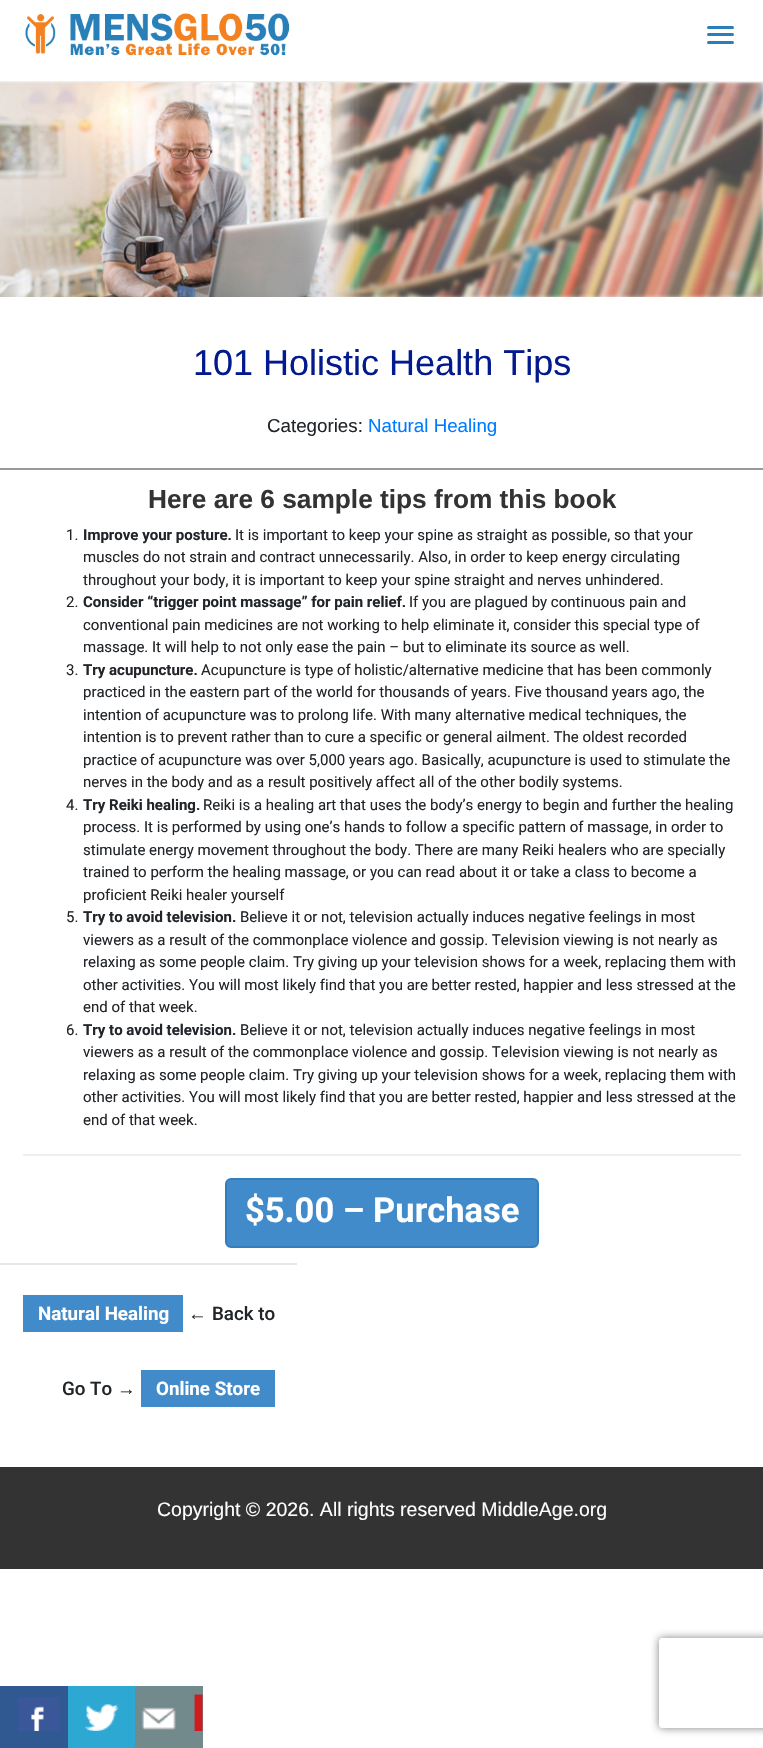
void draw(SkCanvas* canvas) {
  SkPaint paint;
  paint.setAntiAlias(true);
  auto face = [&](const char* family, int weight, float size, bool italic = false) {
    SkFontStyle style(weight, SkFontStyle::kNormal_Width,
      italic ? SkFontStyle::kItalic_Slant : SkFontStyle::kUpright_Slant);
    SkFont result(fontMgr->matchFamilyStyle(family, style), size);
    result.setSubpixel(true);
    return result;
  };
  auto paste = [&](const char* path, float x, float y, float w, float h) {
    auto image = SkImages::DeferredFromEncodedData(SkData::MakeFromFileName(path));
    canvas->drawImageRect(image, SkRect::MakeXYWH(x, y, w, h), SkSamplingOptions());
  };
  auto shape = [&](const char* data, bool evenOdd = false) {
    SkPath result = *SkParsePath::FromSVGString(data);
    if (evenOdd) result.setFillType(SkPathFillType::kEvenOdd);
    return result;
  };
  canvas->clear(0xffffffff);
  paint.setColor(0xffeeeeee);
  canvas->drawRect(SkRect::MakeXYWH(0, 81, 763, 2), paint);
  paste("img/1.png", 25, 13, 265, 43);
  paint.setColor(0xff2980b9);
  canvas->drawRoundRect(SkRect::MakeXYWH(707, 26, 27, 3), 1.5f, 1.5f, paint);
  canvas->drawRoundRect(SkRect::MakeXYWH(707, 33, 27, 3), 1.5f, 1.5f, paint);
  canvas->drawRoundRect(SkRect::MakeXYWH(707, 41, 27, 3), 1.5f, 1.5f, paint);
  paste("img/2.png", 0, 82, 763, 215);
  paint.setColor(0xff999999);
  canvas->drawRect(SkRect::MakeXYWH(0, 468, 763, 2), paint);
  paint.setColor(0xffeeeeee);
  canvas->drawRect(SkRect::MakeXYWH(23, 1154, 718, 2), paint);
  paint.setColor(0xff428bca);
  canvas->drawRoundRect(SkRect::MakeXYWH(226, 1179, 312, 68), 5, 5, paint);
  paint.setStroke(true);
  paint.setStrokeWidth(2);
  paint.setColor(0xff357ebd);
  canvas->drawRoundRect(SkRect::MakeXYWH(226, 1179, 312, 68), 5, 5, paint);
  paint.setStroke(false);
  {
    const struct { float x, y, w, h; SkColor color; } items[] = {
      {0, 1263, 297, 2, 0xffe6e6e6},
      {23, 1295, 160, 37, 0xff428bca},
      {141, 1370, 134, 37, 0xff428bca},
      {0, 1467, 763, 102, 0xff333333},
      {0, 1686, 68, 62, 0xff305891},
    };
    for (auto [x, y, w, h, color] : items) {
      paint.setColor(color);
      canvas->drawRect(SkRect::MakeXYWH(x, y, w, h), paint);
    }
  }
  paste("img/3.png", 18, 1697, 42, 34);
  paint.setColor(0xff2ca8d2);
  canvas->drawRect(SkRect::MakeXYWH(68, 1686, 67, 62), paint);
  paste("img/4.png", 85, 1704, 34, 27);
  paint.setColor(0xff738a8d);
  canvas->drawRect(SkRect::MakeXYWH(135, 1686, 68, 62), paint);
  paste("img/5.png", 141, 1694, 62, 37);
  canvas->save();
  canvas->clipPath(shape("M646 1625H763V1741H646ZM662 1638H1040C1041.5 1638 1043 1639.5 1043 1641V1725C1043 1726.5 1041.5 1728 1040 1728H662C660.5 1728 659 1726.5 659 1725V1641C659 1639.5 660.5 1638 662 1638Z", true), true);
  paint.setColor(0xff808080);
  paint.setMaskFilter(SkMaskFilter::MakeBlur(kNormal_SkBlurStyle, 4));
  canvas->drawRoundRect(SkRect::MakeXYWH(659, 1638, 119, 90), 3, 3, paint);
  paint.setMaskFilter(nullptr);
  canvas->restore();
  auto f0 = face("Liberation Sans", 400, 36);
  paint.setColor(0xff031a8e);
  canvas->drawString("101 Holistic Health Tips", 193, 375, f0, paint);
  auto f1 = face("Liberation Sans", 400, 18.75f);
  paint.setColor(0xff212529);
  canvas->drawString("Categories:", 267, 432, f1, paint);
  paint.setColor(0xff007bff);
  canvas->drawString("Natural Healing", 368, 432, f1, paint);
  auto f2 = face("Liberation Sans", 700, 26.25f);
  paint.setColor(0xff333333);
  canvas->drawString("Here are 6 sample tips from this book", 148, 508, f2, paint);
  auto f3 = face("Roboto", 400, 15);
  paint.setColor(0xff212529);
  canvas->drawString("1.", 66, 540, f3, paint);
  auto f4 = face("Roboto", 700, 15);
  canvas->drawString("Improve your posture.", 83, 540, f4, paint);
  {
    const struct { const char* s; float x, y; } items[] = {
      {"It is important to keep your spine as straight as possible, so that your", 235, 540},
      {"muscles do not strain and contract unnecessarily. Also, in order to keep energy circulating", 83, 562},
      {"throughout your body, it is important to keep your spine straight and nerves unhindered.", 83, 585},
      {"2.", 66, 607},
    };
    for (auto [s, x, y] : items) {
      canvas->drawString(s, x, y, f3, paint);
    }
  }
  canvas->drawString("Consider “trigger point massage” for pain relief.", 83, 607, f4, paint);
  {
    const struct { const char* s; float x, y; } items[] = {
      {"If you are plagued by continuous pain and", 409, 607},
      {"conventional pain medicines are not working to help eliminate it, consider this special type of", 83, 630},
      {"massage. It will help to not only ease the pain – but to eliminate its source as well.", 83, 652},
      {"3.", 66, 675},
    };
    for (auto [s, x, y] : items) {
      canvas->drawString(s, x, y, f3, paint);
    }
  }
  canvas->drawString("Try acupuncture.", 83, 675, f4, paint);
  {
    const struct { const char* s; float x, y; } items[] = {
      {"Acupuncture is type of holistic/alternative medicine that has been commonly", 201, 675},
      {"practiced in the eastern part of the world for thousands of years. Five thousand years ago, the", 83, 697},
      {"intention of acupuncture was to prolong life. With many alternative medical techniques, the", 83, 720},
      {"intention is to prevent rather than to cure a specific or general ailment. The oldest recorded", 83, 742},
      {"practice of acupuncture was over 5,000 years ago. Basically, acupuncture is used to stimulate the", 83, 765},
      {"nerves in the body and as a result positively affect all of the other bodily systems.", 83, 787},
      {"4.", 66, 810},
    };
    for (auto [s, x, y] : items) {
      canvas->drawString(s, x, y, f3, paint);
    }
  }
  canvas->drawString("Try Reiki healing.", 83, 810, f4, paint);
  {
    const struct { const char* s; float x, y; } items[] = {
      {"Reiki is a healing art that uses the body’s energy to begin and further the healing", 203, 810},
      {"process. It is performed by using one’s hands to follow a specific pattern of massage, in order to", 83, 832},
      {"stimulate energy movement throughout the body. There are many Reiki healers who are specially", 83, 855},
      {"trained to perform the healing massage, or you can read about it or take a class to become a", 83, 877},
      {"proficient Reiki healer yourself", 83, 900},
      {"5.", 66, 922},
    };
    for (auto [s, x, y] : items) {
      canvas->drawString(s, x, y, f3, paint);
    }
  }
  canvas->drawString("Try to avoid television.", 83, 922, f4, paint);
  {
    const struct { const char* s; float x, y; } items[] = {
      {"Believe it or not, television actually induces negative feelings in most", 240, 922},
      {"viewers as a result of the commonplace violence and gossip. Television viewing is not nearly as", 83, 945},
      {"relaxing as some people claim. Try giving up your television shows for a week, replacing them with", 83, 967},
      {"other activities. You will most likely find that you are better rested, happier and less stressed at the", 83, 990},
      {"end of that week.", 83, 1012},
      {"6.", 66, 1035},
    };
    for (auto [s, x, y] : items) {
      canvas->drawString(s, x, y, f3, paint);
    }
  }
  canvas->drawString("Try to avoid television.", 83, 1035, f4, paint);
  {
    const struct { const char* s; float x, y; } items[] = {
      {"Believe it or not, television actually induces negative feelings in most", 240, 1035},
      {"viewers as a result of the commonplace violence and gossip. Television viewing is not nearly as", 83, 1057},
      {"relaxing as some people claim. Try giving up your television shows for a week, replacing them with", 83, 1080},
      {"other activities. You will most likely find that you are better rested, happier and less stressed at the", 83, 1102},
      {"end of that week.", 83, 1125},
    };
    for (auto [s, x, y] : items) {
      canvas->drawString(s, x, y, f3, paint);
    }
  }
  auto f5 = face("Roboto", 700, 34.5f);
  paint.setColor(0xffffffff);
  canvas->drawString("$5.00 – Purchase", 245, 1222, f5, paint);
  auto f6 = face("Roboto", 700, 18.75f);
  canvas->drawString("Natural Healing", 38, 1320, f6, paint);
  paint.setColor(0xff212529);
  canvas->drawString("←", 188, 1320, f1, paint);
  auto f7 = face("Roboto", 500, 18.75f);
  canvas->drawString("Back to", 212, 1320, f7, paint);
  canvas->drawString("Go To", 62, 1395, f7, paint);
  canvas->drawString("→", 117, 1395, f1, paint);
  paint.setColor(0xffffffff);
  canvas->drawString("Online Store", 156, 1395, f6, paint);
  auto f8 = face("Liberation Sans", 400, 19.5f);
  canvas->drawString("Copyright © 2026. All rights reserved MiddleAge.org", 157, 1516, f8, paint);
}
